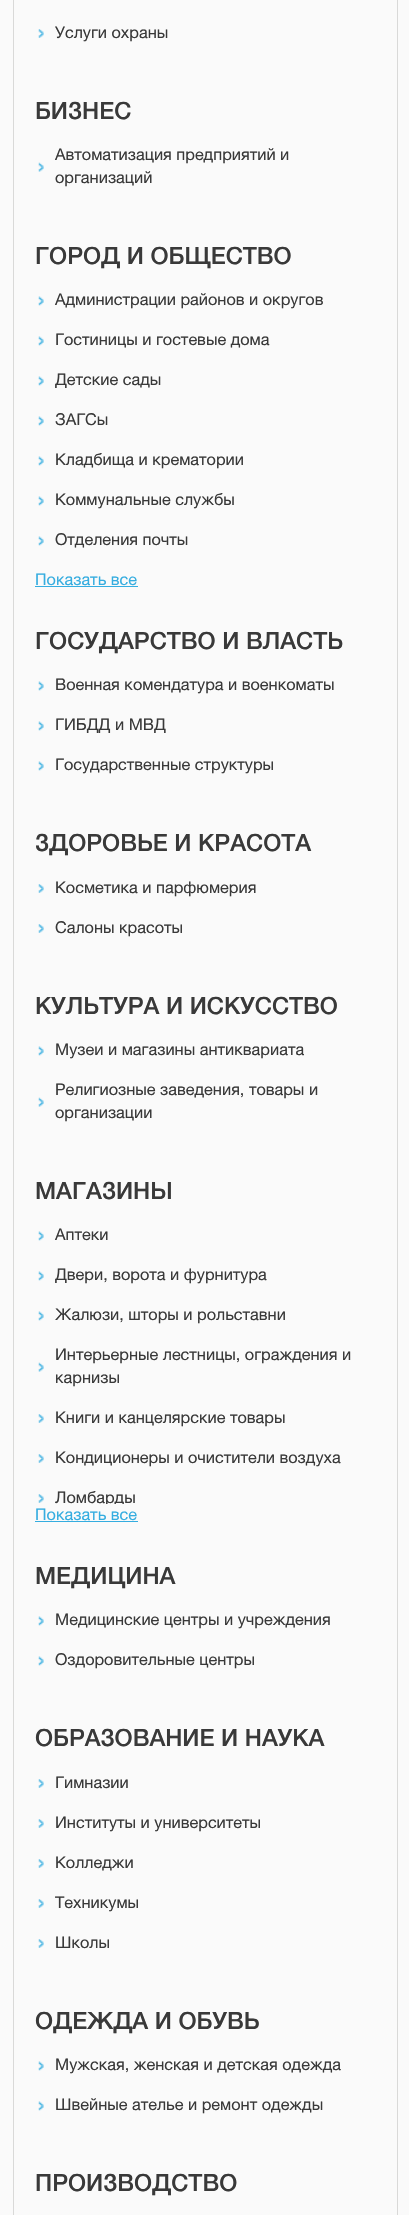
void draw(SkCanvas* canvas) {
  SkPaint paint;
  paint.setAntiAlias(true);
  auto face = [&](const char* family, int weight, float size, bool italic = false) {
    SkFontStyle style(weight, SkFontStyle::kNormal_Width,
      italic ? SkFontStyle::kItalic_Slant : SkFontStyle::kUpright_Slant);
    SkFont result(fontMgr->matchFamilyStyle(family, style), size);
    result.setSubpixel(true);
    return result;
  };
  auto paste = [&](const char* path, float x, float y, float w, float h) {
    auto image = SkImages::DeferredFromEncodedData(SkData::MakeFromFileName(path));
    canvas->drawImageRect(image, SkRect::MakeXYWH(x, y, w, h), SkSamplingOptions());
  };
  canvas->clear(0xfffafafa);
  paint.setStroke(true);
  paint.setStrokeWidth(1);
  paint.setColor(0xffd9d9d8);
  canvas->drawRect(SkRect::MakeXYWH(13.5f, -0.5f, 384, 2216), paint);
  paste("img/1.png", 38, 29, 6, 9);
  paste("img/2.png", 38, 162, 6, 10);
  paste("img/3.png", 38, 296, 6, 10);
  paste("img/3.png", 38, 336, 6, 10);
  paste("img/3.png", 38, 376, 6, 10);
  paste("img/3.png", 38, 416, 6, 10);
  paste("img/3.png", 38, 456, 6, 10);
  paste("img/3.png", 38, 496, 6, 10);
  paste("img/3.png", 38, 536, 6, 10);
  paint.setStroke(false);
  paint.setColor(0xff35ade0);
  canvas->drawRect(SkRect::MakeXYWH(35, 586, 103, 1), paint);
  paste("img/3.png", 38, 681, 6, 10);
  paste("img/3.png", 38, 721, 6, 10);
  paste("img/3.png", 38, 761, 6, 10);
  paste("img/1.png", 38, 884, 6, 9);
  paste("img/1.png", 38, 924, 6, 9);
  paste("img/3.png", 38, 1046, 6, 10);
  paste("img/2.png", 38, 1097, 6, 10);
  paste("img/3.png", 38, 1231, 6, 10);
  paste("img/3.png", 38, 1271, 6, 10);
  paste("img/3.png", 38, 1311, 6, 10);
  paste("img/2.png", 38, 1362, 6, 10);
  paste("img/1.png", 38, 1414, 6, 9);
  paste("img/1.png", 38, 1454, 6, 9);
  paste("img/1.png", 38, 1494, 6, 9);
  canvas->drawRect(SkRect::MakeXYWH(35, 1521, 103, 1), paint);
  paste("img/3.png", 38, 1616, 6, 10);
  paste("img/3.png", 38, 1656, 6, 10);
  paste("img/1.png", 38, 1779, 6, 9);
  paste("img/1.png", 38, 1819, 6, 9);
  paste("img/1.png", 38, 1859, 6, 9);
  paste("img/1.png", 38, 1899, 6, 9);
  paste("img/1.png", 38, 1939, 6, 9);
  paste("img/3.png", 38, 2061, 6, 10);
  paste("img/3.png", 38, 2101, 6, 10);
  auto f0 = face("Helvetica Neue", 400, 16.25f);
  paint.setColor(0xff393939);
  canvas->drawString("Услуги охраны", 55, 38, f0, paint);
  auto f1 = face("Helvetica Neue", 500, 23.75f);
  canvas->drawString("БИЗНЕС", 35, 119, f1, paint);
  canvas->drawString("Автоматизация предприятий и", 55, 160, f0, paint);
  canvas->drawString("организаций", 55, 183, f0, paint);
  canvas->drawString("ГОРОД И ОБЩЕСТВО", 35, 264, f1, paint);
  {
    const struct { const char* s; float x, y; } items[] = {
      {"Администрации районов и округов", 55, 305},
      {"Гостиницы и гостевые дома", 55, 345},
      {"Детские сады", 55, 385},
      {"ЗАГСы", 55, 425},
      {"Кладбища и крематории", 55, 465},
      {"Коммунальные службы", 55, 505},
      {"Отделения почты", 55, 545},
    };
    for (auto [s, x, y] : items) {
      canvas->drawString(s, x, y, f0, paint);
    }
  }
  paint.setColor(0xff35ade0);
  canvas->drawString("Показать все", 35, 585, f0, paint);
  paint.setColor(0xff393939);
  canvas->drawString("ГОСУДАРСТВО И ВЛАСТЬ", 35, 649, f1, paint);
  {
    const struct { const char* s; float x, y; } items[] = {
      {"Военная комендатура и военкоматы", 55, 690},
      {"ГИБДД и МВД", 55, 730},
      {"Государственные структуры", 55, 770},
    };
    for (auto [s, x, y] : items) {
      canvas->drawString(s, x, y, f0, paint);
    }
  }
  canvas->drawString("ЗДОРОВЬЕ И КРАСОТА", 35, 851, f1, paint);
  canvas->drawString("Косметика и парфюмерия", 55, 893, f0, paint);
  canvas->drawString("Салоны красоты", 55, 933, f0, paint);
  canvas->drawString("КУЛЬТУРА И ИСКУССТВО", 35, 1014, f1, paint);
  {
    const struct { const char* s; float x, y; } items[] = {
      {"Музеи и магазины антиквариата", 55, 1055},
      {"Религиозные заведения, товары и", 55, 1095},
      {"организации", 55, 1118},
    };
    for (auto [s, x, y] : items) {
      canvas->drawString(s, x, y, f0, paint);
    }
  }
  canvas->drawString("МАГАЗИНЫ", 35, 1199, f1, paint);
  {
    const struct { const char* s; float x, y; } items[] = {
      {"Аптеки", 55, 1240},
      {"Двери, ворота и фурнитура", 55, 1280},
      {"Жалюзи, шторы и рольставни", 55, 1320},
      {"Интерьерные лестницы, ограждения и", 55, 1360},
      {"карнизы", 55, 1383},
      {"Книги и канцелярские товары", 55, 1423},
      {"Кондиционеры и очистители воздуха", 55, 1463},
    };
    for (auto [s, x, y] : items) {
      canvas->drawString(s, x, y, f0, paint);
    }
  }
  canvas->save();
  canvas->clipRect(SkRect::MakeXYWH(35, 1176, 346, 328));
  canvas->drawString("Ломбарды", 55, 1503, f0, paint);
  canvas->restore();
  paint.setColor(0xff35ade0);
  canvas->drawString("Показать все", 35, 1520, f0, paint);
  paint.setColor(0xff393939);
  canvas->drawString("МЕДИЦИНА", 35, 1584, f1, paint);
  canvas->drawString("Медицинские центры и учреждения", 55, 1625, f0, paint);
  canvas->drawString("Оздоровительные центры", 55, 1665, f0, paint);
  canvas->drawString("ОБРАЗОВАНИЕ И НАУКА", 35, 1746, f1, paint);
  {
    const struct { const char* s; float x, y; } items[] = {
      {"Гимназии", 55, 1788},
      {"Институты и университеты", 55, 1828},
      {"Колледжи", 55, 1868},
      {"Техникумы", 55, 1908},
      {"Школы", 55, 1948},
    };
    for (auto [s, x, y] : items) {
      canvas->drawString(s, x, y, f0, paint);
    }
  }
  canvas->drawString("ОДЕЖДА И ОБУВЬ", 35, 2029, f1, paint);
  canvas->drawString("Мужская, женская и детская одежда", 55, 2070, f0, paint);
  canvas->drawString("Швейные ателье и ремонт одежды", 55, 2110, f0, paint);
  canvas->drawString("ПРОИЗВОДСТВО", 35, 2191, f1, paint);
}
